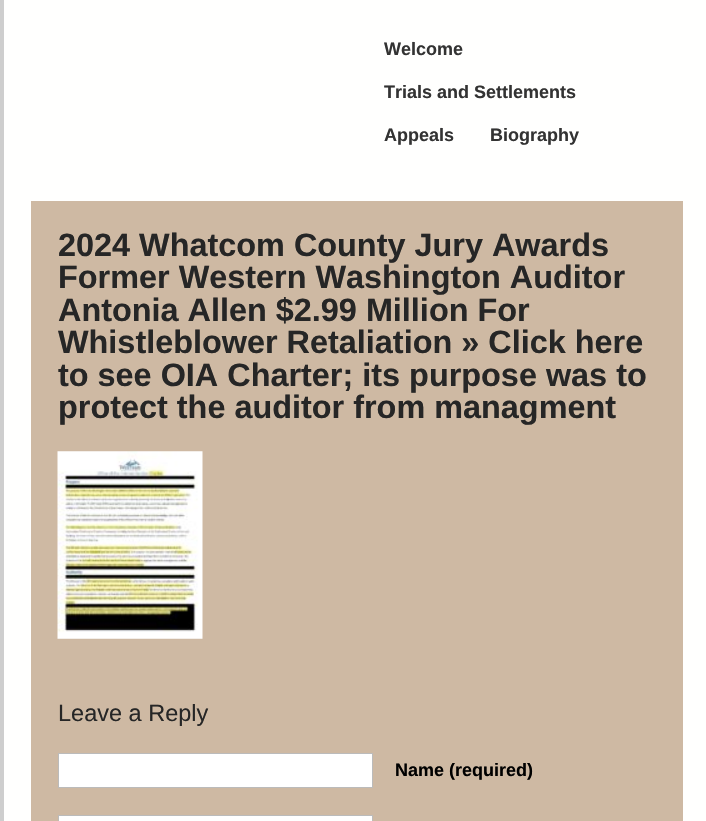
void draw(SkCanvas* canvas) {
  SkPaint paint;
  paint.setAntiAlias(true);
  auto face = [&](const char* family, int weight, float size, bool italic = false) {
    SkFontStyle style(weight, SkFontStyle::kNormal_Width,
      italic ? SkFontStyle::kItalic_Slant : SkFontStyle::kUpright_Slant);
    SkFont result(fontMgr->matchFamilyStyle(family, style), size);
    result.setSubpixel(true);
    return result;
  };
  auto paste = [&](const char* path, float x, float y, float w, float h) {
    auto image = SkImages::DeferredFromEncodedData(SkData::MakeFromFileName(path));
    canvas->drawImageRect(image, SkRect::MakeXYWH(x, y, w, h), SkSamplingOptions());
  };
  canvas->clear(0xfffffffe);
  paint.setColor(0xffcecece);
  canvas->drawRect(SkRect::MakeXYWH(0, 0, 4, 821), paint);
  paint.setColor(0xffceb9a3);
  canvas->drawRect(SkRect::MakeXYWH(31, 201, 652, 620), paint);
  paste("img/1.png", 57, 451, 146, 188);
  paint.setColor(0xffffffff);
  canvas->drawRect(SkRect::MakeXYWH(58.5f, 753.5f, 314, 34), paint);
  paint.setStroke(true);
  paint.setStrokeWidth(1);
  paint.setColor(0xffbbbbbb);
  canvas->drawRect(SkRect::MakeXYWH(58.5f, 753.5f, 314, 34), paint);
  paint.setStroke(false);
  paint.setColor(0xffffffff);
  canvas->drawRect(SkRect::MakeXYWH(58.5f, 815.5f, 314, 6), paint);
  paint.setStroke(true);
  paint.setColor(0xffbbbbbb);
  canvas->drawRect(SkRect::MakeXYWH(58.5f, 815.5f, 314, 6), paint);
  auto f0 = face("Liberation Sans", 700, 18);
  paint.setStroke(false);
  paint.setColor(0xff333333);
  {
    const struct { const char* s; float x, y; } items[] = {
      {"Welcome", 384, 55},
      {"Trials and Settlements", 384, 98},
      {"Appeals", 384, 141},
      {"Biography", 490, 141},
    };
    for (auto [s, x, y] : items) {
      canvas->drawString(s, x, y, f0, paint);
    }
  }
  auto f1 = face("Liberation Sans", 700, 32.4f);
  paint.setColor(0xff262626);
  {
    const struct { const char* s; float x, y; } items[] = {
      {"2024 Whatcom County Jury Awards", 58, 256},
      {"Former Western Washington Auditor", 58, 288},
      {"Antonia Allen $2.99 Million For", 58, 321},
      {"Whistleblower Retaliation » Click here", 58, 353},
      {"to see OIA Charter; its purpose was to", 58, 386},
      {"protect the auditor from managment", 58, 418},
    };
    for (auto [s, x, y] : items) {
      canvas->drawString(s, x, y, f1, paint);
    }
  }
  auto f2 = face("Liberation Sans", 400, 23.5f);
  canvas->drawString("Leave a Reply", 58, 721, f2, paint);
  paint.setColor(0xff000000);
  canvas->drawString("Name (required)", 395, 776, f0, paint);
}
